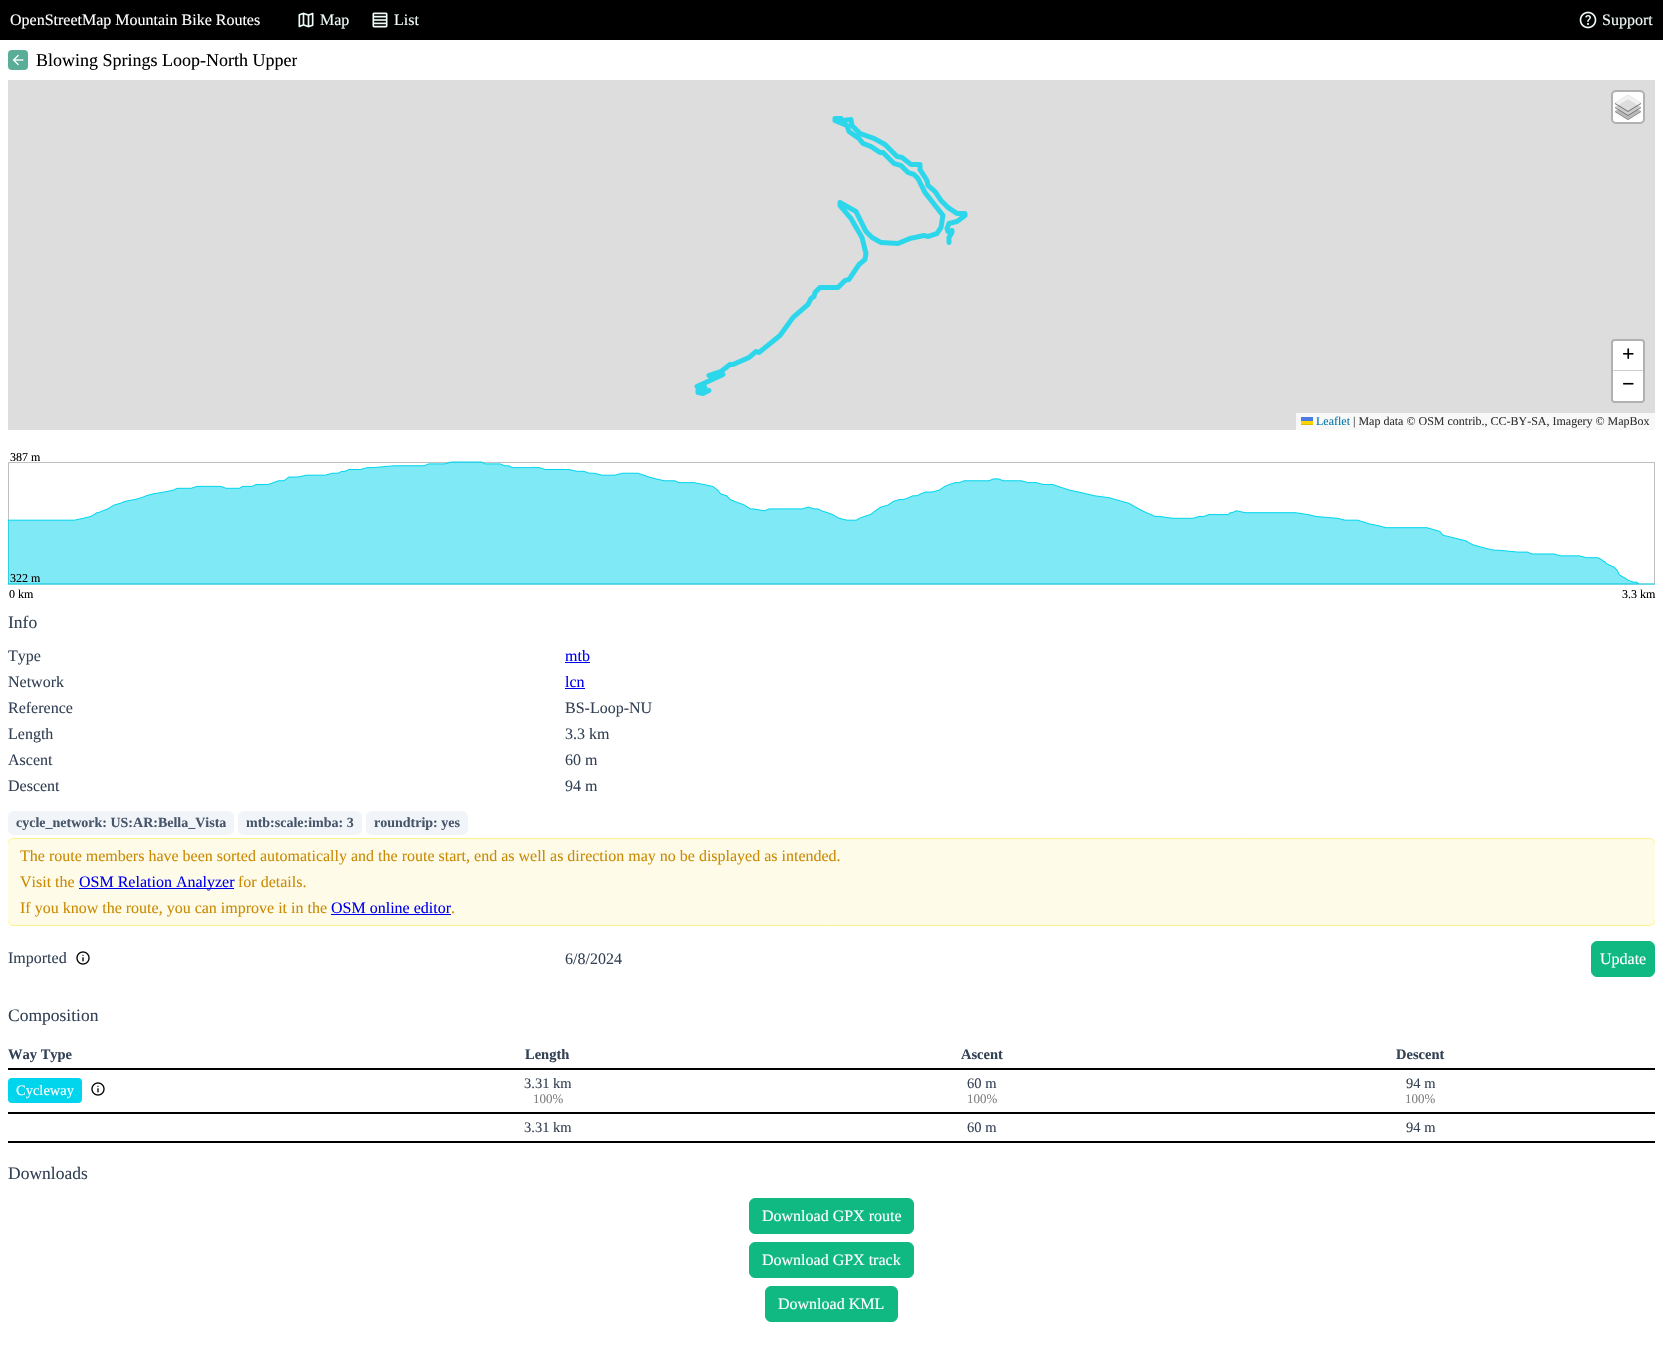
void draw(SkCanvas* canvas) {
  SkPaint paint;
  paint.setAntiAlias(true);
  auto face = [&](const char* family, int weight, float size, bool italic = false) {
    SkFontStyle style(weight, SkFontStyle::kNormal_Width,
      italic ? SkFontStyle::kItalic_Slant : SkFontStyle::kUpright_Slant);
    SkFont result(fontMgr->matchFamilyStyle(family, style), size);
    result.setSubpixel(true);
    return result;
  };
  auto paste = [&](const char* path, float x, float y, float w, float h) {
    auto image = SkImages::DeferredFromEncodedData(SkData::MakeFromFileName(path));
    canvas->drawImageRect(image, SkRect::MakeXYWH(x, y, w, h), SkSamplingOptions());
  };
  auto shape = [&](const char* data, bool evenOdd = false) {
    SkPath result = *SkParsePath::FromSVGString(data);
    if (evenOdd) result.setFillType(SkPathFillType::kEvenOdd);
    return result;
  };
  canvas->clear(0xffffffff);
  paint.setColor(0xff000000);
  canvas->drawRect(SkRect::MakeXYWH(0, 0, 1663, 40), paint);
  paste("img/1.png", 298, 12, 16, 16);
  paste("img/2.png", 372, 12, 16, 16);
  paste("img/3.png", 1579, 11, 18, 18);
  paint.setColor(0xff5aad97);
  canvas->drawRoundRect(SkRect::MakeXYWH(8, 50, 20, 20), 4, 4, paint);
  paste("img/4.png", 12, 54, 12, 12);
  paint.setColor(0xffdddddd);
  canvas->drawRect(SkRect::MakeXYWH(8, 80, 1647, 350), paint);
  paste("img/5.png", 694, 116, 274, 280);
  paint.setColor(0xffffffff);
  canvas->drawRoundRect(SkRect::MakeXYWH(1612, 91, 32, 32), 4, 4, paint);
  paint.setStroke(true);
  paint.setStrokeWidth(2);
  paint.setColor(0xffb1b1b1);
  canvas->drawRoundRect(SkRect::MakeXYWH(1612, 91, 32, 32), 4, 4, paint);
  paste("img/6.png", 1615, 95, 26, 25);
  canvas->drawRoundRect(SkRect::MakeXYWH(1612, 340, 32, 62), 3, 3, paint);
  paint.setStroke(false);
  paint.setColor(0xffffffff);
  canvas->drawPath(shape("M1615 341H1641C1642 341 1643 342 1643 343V371H1613V343C1613 342 1614 341 1615 341Z"), paint);
  paint.setColor(0xffcccccc);
  canvas->drawRect(SkRect::MakeXYWH(1613, 370, 30, 1), paint);
  paint.setColor(0xffffffff);
  canvas->drawPath(shape("M1613 371H1643V399C1643 400 1642 401 1641 401H1615C1614 401 1613 400 1613 399Z"), paint);
  {
    const struct { float x, y, w, h; SkColor color; } items[] = {
      {1296, 413, 359, 17, 0xfff8f8f8},
      {1301, 417, 12, 4, 0xff4c7be1},
      {1301, 421, 12, 3, 0xffffd500},
      {1301, 424, 12, 1, 0xffe0bc00},
    };
    for (auto [x, y, w, h, color] : items) {
      paint.setColor(color);
      canvas->drawRect(SkRect::MakeXYWH(x, y, w, h), paint);
    }
  }
  paste("img/7.png", 8, 461, 1647, 124);
  paint.setColor(0xff0000ee);
  canvas->drawRect(SkRect::MakeXYWH(565, 662, 25, 1), paint);
  canvas->drawRect(SkRect::MakeXYWH(565, 688, 20, 1), paint);
  paint.setColor(0xfff1f5f9);
  canvas->drawRoundRect(SkRect::MakeXYWH(8, 811, 226, 24), 6, 6, paint);
  canvas->drawRoundRect(SkRect::MakeXYWH(238, 811, 124, 24), 6, 6, paint);
  canvas->drawRoundRect(SkRect::MakeXYWH(366, 811, 102, 24), 6, 6, paint);
  paint.setColor(0xfffefce9);
  canvas->drawRoundRect(SkRect::MakeXYWH(8, 839, 1647, 86), 6, 6, paint);
  paint.setColor(0xff0000ee);
  canvas->drawRect(SkRect::MakeXYWH(79, 888, 155, 1), paint);
  canvas->drawRect(SkRect::MakeXYWH(331, 914, 120, 1), paint);
  canvas->save();
  canvas->clipRect(SkRect::MakeXYWH(8, 604, 1647, 746));
  paint.setStroke(true);
  paint.setStrokeWidth(1);
  paint.setColor(0xfffef08a);
  canvas->drawRoundRect(SkRect::MakeXYWH(7.5f, 838.5f, 1648, 87), 6.5f, 6.5f, paint);
  canvas->restore();
  paste("img/8.png", 76, 951, 14, 14);
  paint.setStroke(false);
  paint.setColor(0xff10b981);
  canvas->drawRoundRect(SkRect::MakeXYWH(1591.5f, 941.5f, 63, 35), 5.5f, 5.5f, paint);
  paint.setStroke(true);
  canvas->drawRoundRect(SkRect::MakeXYWH(1591.5f, 941.5f, 63, 35), 5.5f, 5.5f, paint);
  paint.setStroke(false);
  paint.setColor(0xff000000);
  canvas->drawRect(SkRect::MakeXYWH(8, 1068, 1647, 2), paint);
  paint.setColor(0xff00d5ed);
  canvas->drawRoundRect(SkRect::MakeXYWH(8, 1078, 74, 25), 4, 4, paint);
  paste("img/8.png", 91, 1082, 14, 14);
  paint.setColor(0xff000000);
  canvas->drawRect(SkRect::MakeXYWH(8, 1112, 1647, 2), paint);
  canvas->drawRect(SkRect::MakeXYWH(8, 1141, 1647, 2), paint);
  paint.setColor(0xff10b981);
  canvas->drawRoundRect(SkRect::MakeXYWH(749.5f, 1198.5f, 164, 35), 5.5f, 5.5f, paint);
  paint.setStroke(true);
  canvas->drawRoundRect(SkRect::MakeXYWH(749.5f, 1198.5f, 164, 35), 5.5f, 5.5f, paint);
  paint.setStroke(false);
  canvas->drawRoundRect(SkRect::MakeXYWH(749.5f, 1242.5f, 164, 35), 5.5f, 5.5f, paint);
  paint.setStroke(true);
  canvas->drawRoundRect(SkRect::MakeXYWH(749.5f, 1242.5f, 164, 35), 5.5f, 5.5f, paint);
  paint.setStroke(false);
  canvas->drawRoundRect(SkRect::MakeXYWH(765.5f, 1286.5f, 132, 35), 5.5f, 5.5f, paint);
  paint.setStroke(true);
  canvas->drawRoundRect(SkRect::MakeXYWH(765.5f, 1286.5f, 132, 35), 5.5f, 5.5f, paint);
  auto f0 = face("Liberation Serif", 400, 16);
  paint.setStroke(false);
  paint.setColor(0xffffffff);
  canvas->drawString("OpenStreetMap Mountain Bike Routes", 10, 25, f0, paint);
  paint.setColor(0xffeffcf8);
  {
    const struct { const char* s; float x, y; } items[] = {
      {"Map", 320, 25},
      {"List", 394, 25},
      {"Support", 1602, 25},
    };
    for (auto [s, x, y] : items) {
      canvas->drawString(s, x, y, f0, paint);
    }
  }
  canvas->save();
  canvas->clipRect(SkRect::MakeXYWH(36, 50, 261, 21));
  auto f1 = face("Liberation Serif", 400, 18);
  paint.setColor(0xff000000);
  canvas->drawString("Blowing Springs Loop-North Upper", 36, 66, f1, paint);
  canvas->restore();
  auto f2 = face("Liberation Serif", 700, 22);
  canvas->drawString("+", 1622, 361, f2, paint);
  canvas->drawString("−", 1622, 391, f2, paint);
  auto f3 = face("Liberation Serif", 400, 12);
  paint.setColor(0xff0078a8);
  canvas->drawString("Leaflet", 1316, 425, f3, paint);
  paint.setColor(0xff333333);
  canvas->drawString("| Map data © OSM contrib., CC-BY-SA, Imagery © MapBox", 1353, 425, f3, paint);
  paint.setColor(0xff000000);
  {
    const struct { const char* s; float x, y; } items[] = {
      {"387 m", 10, 461},
      {"322 m", 10, 582},
      {"0 km", 9, 598},
      {"3.3 km", 1622, 598},
    };
    for (auto [s, x, y] : items) {
      canvas->drawString(s, x, y, f3, paint);
    }
  }
  auto f4 = face("Liberation Serif", 400, 17.5f);
  paint.setColor(0xff334155);
  canvas->drawString("Info", 8, 628, f4, paint);
  canvas->drawString("Type", 8, 661, f0, paint);
  paint.setColor(0xff0000ee);
  canvas->drawString("mtb", 565, 661, f0, paint);
  paint.setColor(0xff334155);
  canvas->drawString("Network", 8, 687, f0, paint);
  paint.setColor(0xff0000ee);
  canvas->drawString("lcn", 565, 687, f0, paint);
  paint.setColor(0xff334155);
  {
    const struct { const char* s; float x, y; } items[] = {
      {"Reference", 8, 713},
      {"BS-Loop-NU", 565, 713},
      {"Length", 8, 739},
      {"3.3 km", 565, 739},
      {"Ascent", 8, 765},
      {"60 m", 565, 765},
      {"Descent", 8, 791},
      {"94 m", 565, 791},
    };
    for (auto [s, x, y] : items) {
      canvas->drawString(s, x, y, f0, paint);
    }
  }
  auto f5 = face("Liberation Serif", 700, 14);
  paint.setColor(0xff475569);
  {
    const struct { const char* s; float x, y; } items[] = {
      {"cycle_network: US:AR:Bella_Vista", 16, 827},
      {"mtb:scale:imba: 3", 246, 827},
      {"roundtrip: yes", 374, 827},
    };
    for (auto [s, x, y] : items) {
      canvas->drawString(s, x, y, f5, paint);
    }
  }
  paint.setColor(0xffca8a04);
  canvas->drawString("The route members have been sorted automatically and the route start, end as well as direction may no be displayed as intended.", 20, 861, f0, paint);
  canvas->drawString("Visit the", 20, 887, f0, paint);
  paint.setColor(0xff0000ee);
  canvas->drawString("OSM Relation Analyzer", 79, 887, f0, paint);
  paint.setColor(0xffca8a04);
  canvas->drawString("for details.", 238, 887, f0, paint);
  canvas->drawString("If you know the route, you can improve it in the", 20, 913, f0, paint);
  paint.setColor(0xff0000ee);
  canvas->drawString("OSM online editor", 331, 913, f0, paint);
  paint.setColor(0xffca8a04);
  canvas->drawString(".", 451, 913, f0, paint);
  paint.setColor(0xff334155);
  canvas->drawString("Imported", 8, 963, f0, paint);
  canvas->drawString("6/8/2024", 565, 964, f0, paint);
  paint.setColor(0xffffffff);
  canvas->drawString("Update", 1600, 964, f0, paint);
  paint.setColor(0xff334155);
  canvas->drawString("Composition", 8, 1021, f4, paint);
  auto f6 = face("Liberation Serif", 700, 14.5f);
  {
    const struct { const char* s; float x, y; } items[] = {
      {"Way Type", 8, 1059},
      {"Length", 525, 1059},
      {"Ascent", 961, 1059},
      {"Descent", 1396, 1059},
    };
    for (auto [s, x, y] : items) {
      canvas->drawString(s, x, y, f6, paint);
    }
  }
  auto f7 = face("Liberation Serif", 400, 14.5f);
  paint.setColor(0xffffffff);
  canvas->drawString("Cycleway", 16, 1095, f7, paint);
  paint.setColor(0xff334155);
  canvas->drawString("3.31 km", 524, 1088, f7, paint);
  auto f8 = face("Liberation Serif", 400, 13);
  paint.setColor(0xff808080);
  canvas->drawString("100%", 533, 1103, f8, paint);
  paint.setColor(0xff334155);
  canvas->drawString("60 m", 967, 1088, f7, paint);
  paint.setColor(0xff808080);
  canvas->drawString("100%", 967, 1103, f8, paint);
  paint.setColor(0xff334155);
  canvas->drawString("94 m", 1406, 1088, f7, paint);
  paint.setColor(0xff808080);
  canvas->drawString("100%", 1405, 1103, f8, paint);
  paint.setColor(0xff334155);
  {
    const struct { const char* s; float x, y; } items[] = {
      {"3.31 km", 524, 1132},
      {"60 m", 967, 1132},
      {"94 m", 1406, 1132},
    };
    for (auto [s, x, y] : items) {
      canvas->drawString(s, x, y, f7, paint);
    }
  }
  canvas->drawString("Downloads", 8, 1179, f4, paint);
  paint.setColor(0xffffffff);
  {
    const struct { const char* s; float x, y; } items[] = {
      {"Download GPX route", 762, 1221},
      {"Download GPX track", 762, 1265},
      {"Download KML", 778, 1309},
    };
    for (auto [s, x, y] : items) {
      canvas->drawString(s, x, y, f0, paint);
    }
  }
}
